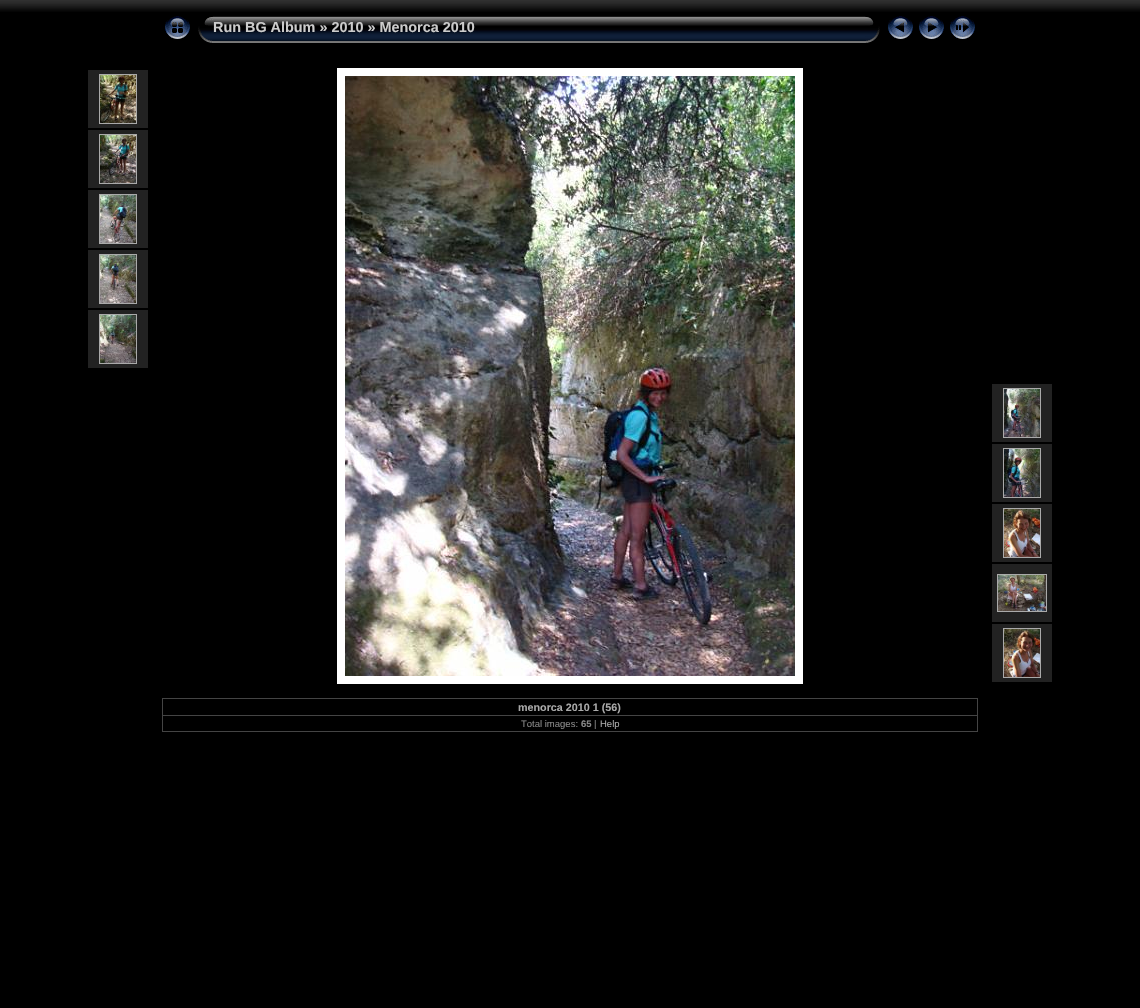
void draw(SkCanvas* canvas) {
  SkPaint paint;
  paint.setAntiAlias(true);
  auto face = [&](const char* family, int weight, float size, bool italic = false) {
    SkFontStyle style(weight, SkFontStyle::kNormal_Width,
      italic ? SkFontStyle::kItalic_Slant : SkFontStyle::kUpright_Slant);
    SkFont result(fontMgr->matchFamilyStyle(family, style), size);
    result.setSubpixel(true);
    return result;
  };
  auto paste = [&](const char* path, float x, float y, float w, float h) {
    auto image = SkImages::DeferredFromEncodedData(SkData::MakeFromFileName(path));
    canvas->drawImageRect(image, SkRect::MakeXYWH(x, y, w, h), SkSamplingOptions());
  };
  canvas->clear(0xff000000);
  paste("img/1.png", 0, 0, 1140, 12);
  paste("img/2.png", 165, 16, 25, 23);
  paste("img/3.png", 198, 16, 15, 27);
  paste("img/4.png", 213, 16, 652, 27);
  paste("img/5.png", 865, 16, 15, 27);
  paste("img/6.png", 888, 16, 25, 23);
  paste("img/7.png", 919, 16, 25, 23);
  paste("img/8.png", 950, 16, 25, 23);
  paint.setColor(0xff222222);
  canvas->drawRect(SkRect::MakeXYWH(88, 70, 60, 58), paint);
  paint.setStroke(true);
  paint.setStrokeWidth(1);
  paint.setColor(0xffaaaaaa);
  canvas->drawRect(SkRect::MakeXYWH(99.5f, 74.5f, 37, 49), paint);
  paste("img/9.png", 100, 75, 36, 48);
  paint.setStroke(false);
  paint.setColor(0xff222222);
  canvas->drawRect(SkRect::MakeXYWH(88, 130, 60, 58), paint);
  paint.setStroke(true);
  paint.setColor(0xffaaaaaa);
  canvas->drawRect(SkRect::MakeXYWH(99.5f, 134.5f, 37, 49), paint);
  paste("img/10.png", 100, 135, 36, 48);
  paint.setStroke(false);
  paint.setColor(0xff222222);
  canvas->drawRect(SkRect::MakeXYWH(88, 190, 60, 58), paint);
  paint.setStroke(true);
  paint.setColor(0xffaaaaaa);
  canvas->drawRect(SkRect::MakeXYWH(99.5f, 194.5f, 37, 49), paint);
  paste("img/11.png", 100, 195, 36, 48);
  paint.setStroke(false);
  paint.setColor(0xff222222);
  canvas->drawRect(SkRect::MakeXYWH(88, 250, 60, 58), paint);
  paint.setStroke(true);
  paint.setColor(0xffaaaaaa);
  canvas->drawRect(SkRect::MakeXYWH(99.5f, 254.5f, 37, 49), paint);
  paste("img/12.png", 100, 255, 36, 48);
  paint.setStroke(false);
  paint.setColor(0xff222222);
  canvas->drawRect(SkRect::MakeXYWH(88, 310, 60, 58), paint);
  paint.setStroke(true);
  paint.setColor(0xffaaaaaa);
  canvas->drawRect(SkRect::MakeXYWH(99.5f, 314.5f, 37, 49), paint);
  paste("img/13.png", 100, 315, 36, 48);
  paint.setStrokeWidth(8);
  paint.setColor(0xffffffff);
  canvas->drawRect(SkRect::MakeXYWH(341, 72, 458, 608), paint);
  paste("img/14.png", 345, 76, 450, 600);
  paint.setStroke(false);
  paint.setColor(0xff222222);
  canvas->drawRect(SkRect::MakeXYWH(992, 384, 60, 58), paint);
  paint.setStroke(true);
  paint.setStrokeWidth(1);
  paint.setColor(0xffaaaaaa);
  canvas->drawRect(SkRect::MakeXYWH(1003.5f, 388.5f, 37, 49), paint);
  paste("img/15.png", 1004, 389, 36, 48);
  paint.setStroke(false);
  paint.setColor(0xff222222);
  canvas->drawRect(SkRect::MakeXYWH(992, 444, 60, 58), paint);
  paint.setStroke(true);
  paint.setColor(0xffaaaaaa);
  canvas->drawRect(SkRect::MakeXYWH(1003.5f, 448.5f, 37, 49), paint);
  paste("img/16.png", 1004, 449, 36, 48);
  paint.setStroke(false);
  paint.setColor(0xff222222);
  canvas->drawRect(SkRect::MakeXYWH(992, 504, 60, 58), paint);
  paint.setStroke(true);
  paint.setColor(0xffaaaaaa);
  canvas->drawRect(SkRect::MakeXYWH(1003.5f, 508.5f, 37, 49), paint);
  paste("img/17.png", 1004, 509, 36, 48);
  paint.setStroke(false);
  paint.setColor(0xff222222);
  canvas->drawRect(SkRect::MakeXYWH(992, 564, 60, 58), paint);
  paint.setStroke(true);
  paint.setColor(0xffaaaaaa);
  canvas->drawRect(SkRect::MakeXYWH(997.5f, 574.5f, 49, 37), paint);
  paste("img/18.png", 998, 575, 48, 36);
  paint.setStroke(false);
  paint.setColor(0xff222222);
  canvas->drawRect(SkRect::MakeXYWH(992, 624, 60, 58), paint);
  paint.setStroke(true);
  paint.setColor(0xffaaaaaa);
  canvas->drawRect(SkRect::MakeXYWH(1003.5f, 628.5f, 37, 49), paint);
  paste("img/19.png", 1004, 629, 36, 48);
  paint.setStroke(false);
  {
    const struct { float x, y, w, h; SkColor color; } items[] = {
      {162, 698, 816, 1, 0xff444444},
      {977, 698, 1, 34, 0xff444444},
      {162, 731, 816, 1, 0xff444444},
      {162, 698, 1, 34, 0xff444444},
      {162, 715, 816, 1, 0xff444444},
    };
    for (auto [x, y, w, h, color] : items) {
      paint.setColor(color);
      canvas->drawRect(SkRect::MakeXYWH(x, y, w, h), paint);
    }
  }
  auto f0 = face("Liberation Sans", 700, 14.4f);
  paint.setColor(0xffcccccc);
  canvas->drawString("Run BG Album » 2010 » Menorca 2010", 213, 32, f0, paint);
  auto f1 = face("Liberation Sans", 700, 10.75f);
  paint.setColor(0xffaaaaaa);
  canvas->drawString("menorca 2010 1 (56)", 518, 711, f1, paint);
  auto f2 = face("Liberation Sans", 400, 9.5f);
  paint.setColor(0xff888888);
  canvas->drawString("Total images:", 521, 727, f2, paint);
  auto f3 = face("Liberation Sans", 700, 9.5f);
  canvas->drawString("65", 581, 727, f3, paint);
  canvas->drawString("|", 594, 727, f2, paint);
  paint.setColor(0xffaaaaaa);
  canvas->drawString("Help", 600, 727, f2, paint);
}
